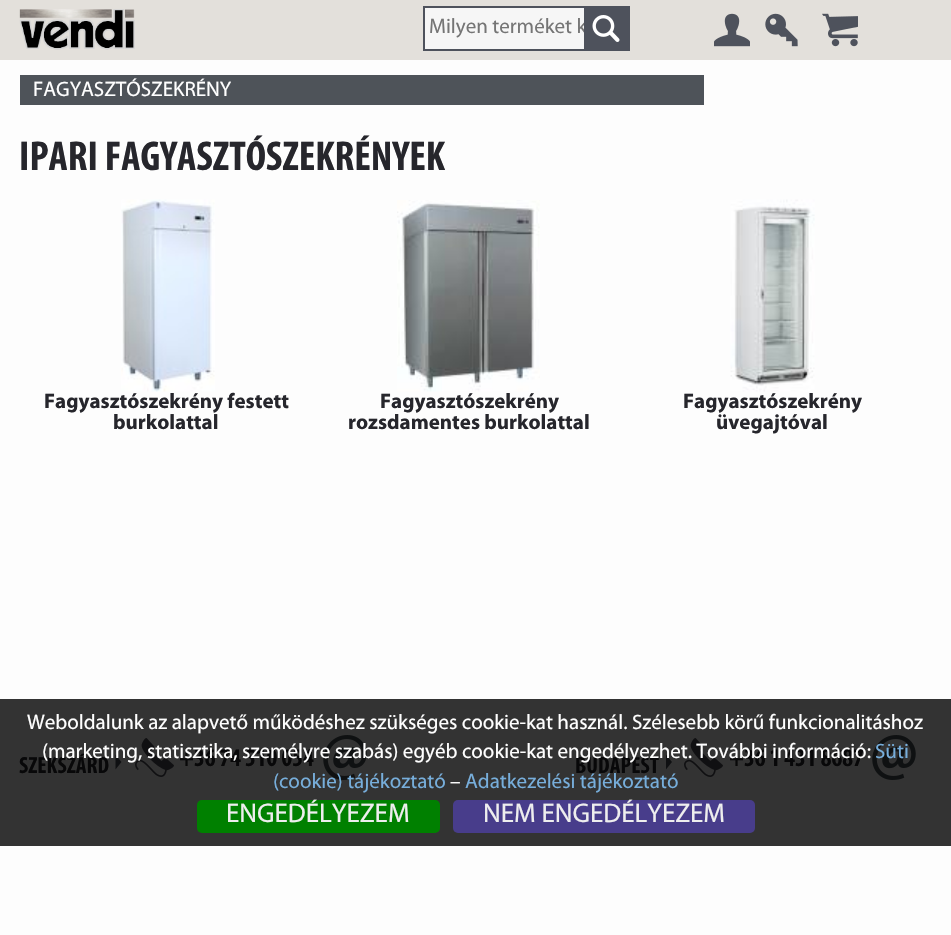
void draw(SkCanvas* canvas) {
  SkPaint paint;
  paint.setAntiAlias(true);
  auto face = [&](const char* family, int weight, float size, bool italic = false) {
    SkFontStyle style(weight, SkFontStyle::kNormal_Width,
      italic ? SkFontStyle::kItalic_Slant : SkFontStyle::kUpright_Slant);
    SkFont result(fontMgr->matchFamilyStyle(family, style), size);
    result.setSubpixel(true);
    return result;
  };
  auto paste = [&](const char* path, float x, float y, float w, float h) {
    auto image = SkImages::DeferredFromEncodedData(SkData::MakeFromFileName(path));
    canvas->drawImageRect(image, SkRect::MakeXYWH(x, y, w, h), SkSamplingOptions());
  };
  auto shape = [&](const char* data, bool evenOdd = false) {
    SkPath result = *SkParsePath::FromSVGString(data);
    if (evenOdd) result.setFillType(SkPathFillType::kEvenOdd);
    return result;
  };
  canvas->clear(0xfffdfdfd);
  paint.setColor(0xff333333);
  canvas->drawRect(SkRect::MakeXYWH(0, 699, 951, 147), paint);
  paint.setColor(0xffe3e0db);
  canvas->drawRect(SkRect::MakeXYWH(0, 0, 951, 60), paint);
  paste("img/1.png", 19, 9, 116, 41);
  paint.setColor(0xfff6f6f6);
  canvas->drawRect(SkRect::MakeXYWH(425, 8, 159, 41), paint);
  paint.setStroke(true);
  paint.setStrokeWidth(2);
  paint.setColor(0xff4e525c);
  canvas->drawRect(SkRect::MakeXYWH(424, 7, 205, 43), paint);
  paint.setStroke(false);
  paint.setColor(0xff0f1012);
  canvas->drawPath(shape("M115.5 769.5V754.5L121.5 762Z"), paint);
  paste("img/3.png", 135, 738, 39, 39);
  paste("img/4.png", 323, 735, 44, 45);
  canvas->drawPath(shape("M666 769.5V754.5L672 762Z"), paint);
  paste("img/3.png", 684, 738, 39, 39);
  paste("img/4.png", 872, 735, 44, 45);
  paste("img/5.png", 714, 13, 36, 34);
  paste("img/6.png", 765, 13, 33, 34);
  paste("img/7.png", 822, 13, 36, 34);
  paint.setColor(0xff4e5359);
  canvas->drawRect(SkRect::MakeXYWH(20, 75, 684, 30), paint);
  paste("img/8.png", 121, 199, 94, 193);
  paste("img/9.png", 397, 200, 143, 192);
  paste("img/10.png", 730, 199, 85, 193);
  paint.setColor(0xff008000);
  canvas->drawRoundRect(SkRect::MakeXYWH(197, 800, 243, 33), 5, 5, paint);
  paint.setColor(0xff483d8b);
  canvas->drawRoundRect(SkRect::MakeXYWH(453, 800, 302, 33), 5, 5, paint);
  auto f0 = face("Myriad", 400, 21);
  paint.setColor(0xff757575);
  canvas->drawString("Milyen terméket k", 429, 33, f0, paint);
  paint.setColor(0xff4e525c);
  canvas->drawRect(SkRect::MakeXYWH(584, 8, 44, 41), paint);
  paste("img/2.png", 592, 15, 28, 27);
  auto f1 = face("Myriad", 700, 23.5f);
  paint.setColor(0xff080809);
  canvas->drawString("SZEKSZÁRD", 19, 773, f1, paint);
  auto f2 = face("Myriad", 700, 25.25f);
  canvas->drawString("+36 74 510 054", 179, 766, f2, paint);
  canvas->drawString("BUDAPEST", 575, 773, f1, paint);
  canvas->drawString("+36 1 431 8687", 729, 766, f2, paint);
  paint.setColor(0xffffffff);
  canvas->drawString("FAGYASZTÓSZEKRÉNY", 33, 96, f0, paint);
  auto f3 = face("Myriad", 700, 42);
  paint.setColor(0xff26262c);
  canvas->drawString("IPARI FAGYASZTÓSZEKRÉNYEK", 19, 170, f3, paint);
  auto f4 = face("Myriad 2", 700, 21);
  {
    const struct { const char* s; float x, y; } items[] = {
      {"Fagyasztószekrény festett", 44, 408},
      {"burkolattal", 113, 429},
      {"Fagyasztószekrény", 380, 408},
      {"rozsdamentes burkolattal", 348, 429},
      {"Fagyasztószekrény", 683, 408},
      {"üvegajtóval", 716, 429},
    };
    for (auto [s, x, y] : items) {
      canvas->drawString(s, x, y, f4, paint);
    }
  }
  paint.setColor(0xffffffff);
  canvas->drawString("Weboldalunk az alapvető működéshez szükséges cookie-kat használ. Szélesebb körű funkcionalitáshoz", 27, 729, f0, paint);
  canvas->drawString("(marketing, statisztika, személyre szabás) egyéb cookie-kat engedélyezhet. További információ:", 42, 758, f0, paint);
  paint.setColor(0xff77aedb);
  canvas->drawString("Süti", 875, 758, f0, paint);
  canvas->drawString("(cookie) tájékoztató", 273, 788, f0, paint);
  paint.setColor(0xffffffff);
  canvas->drawString("–", 450, 788, f0, paint);
  paint.setColor(0xff77aedb);
  canvas->drawString("Adatkezelési tájékoztató", 465, 788, f0, paint);
  auto f5 = face("Myriad", 400, 27);
  paint.setColor(0xffeeeeee);
  canvas->drawString("ENGEDÉLYEZEM", 226, 822, f5, paint);
  canvas->drawString("NEM ENGEDÉLYEZEM", 483, 822, f5, paint);
}
